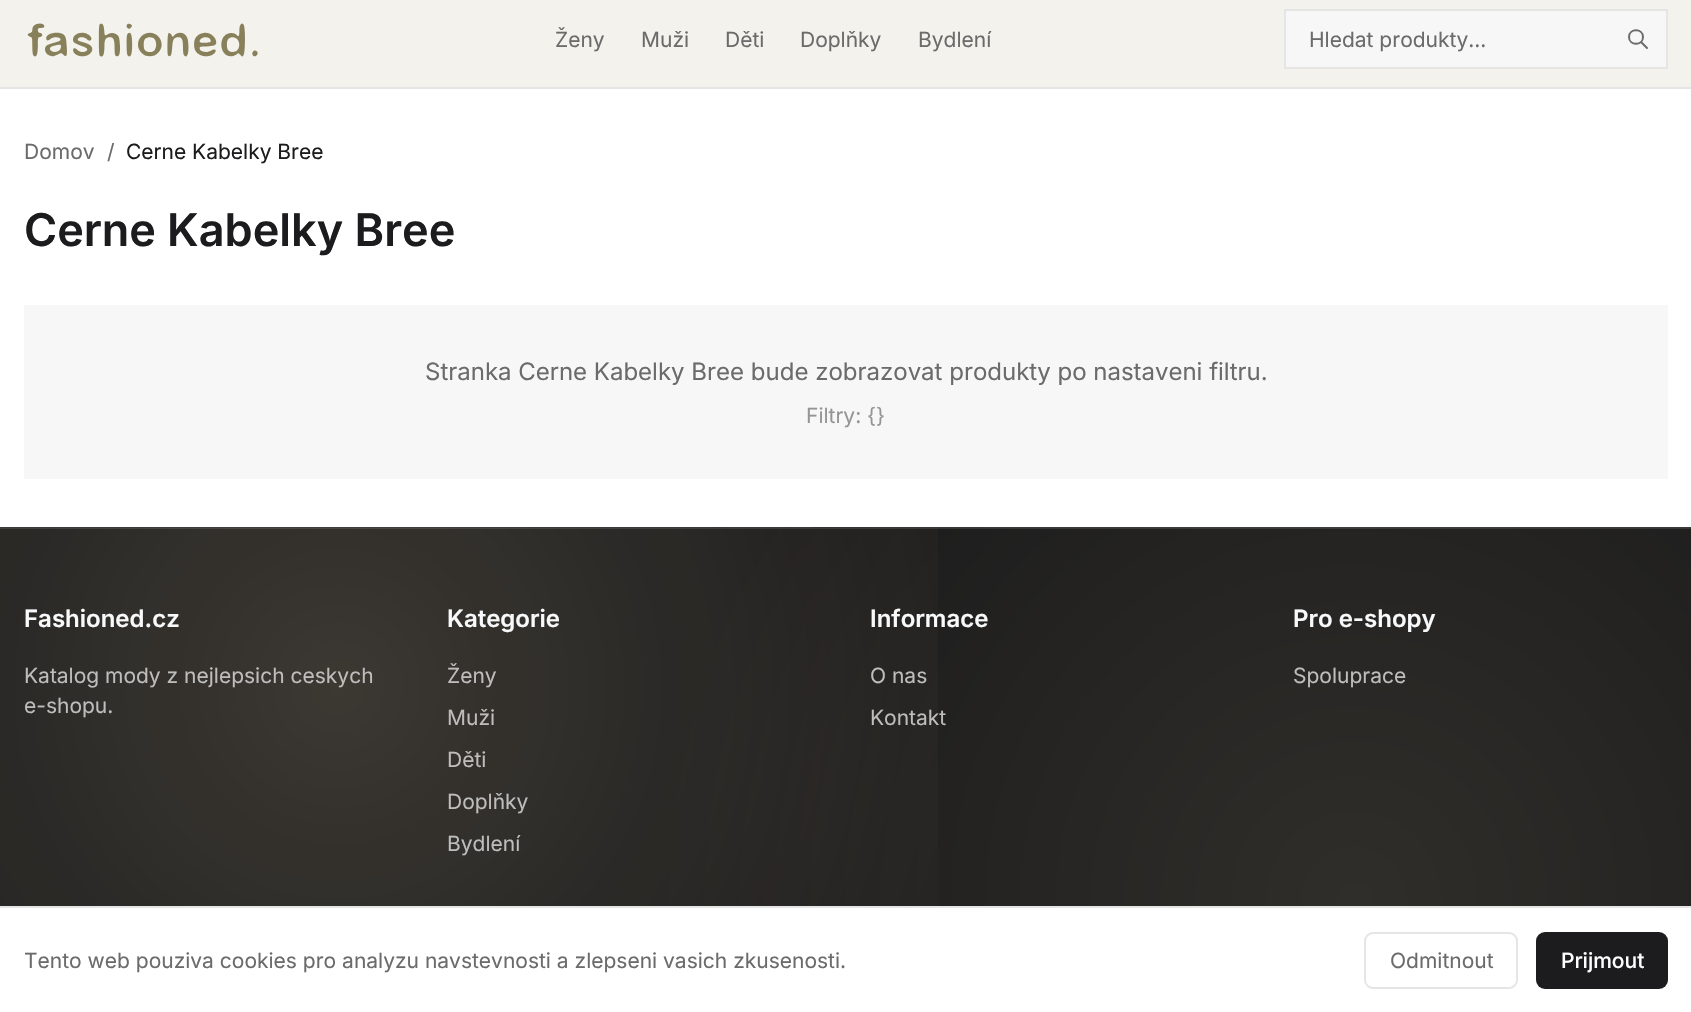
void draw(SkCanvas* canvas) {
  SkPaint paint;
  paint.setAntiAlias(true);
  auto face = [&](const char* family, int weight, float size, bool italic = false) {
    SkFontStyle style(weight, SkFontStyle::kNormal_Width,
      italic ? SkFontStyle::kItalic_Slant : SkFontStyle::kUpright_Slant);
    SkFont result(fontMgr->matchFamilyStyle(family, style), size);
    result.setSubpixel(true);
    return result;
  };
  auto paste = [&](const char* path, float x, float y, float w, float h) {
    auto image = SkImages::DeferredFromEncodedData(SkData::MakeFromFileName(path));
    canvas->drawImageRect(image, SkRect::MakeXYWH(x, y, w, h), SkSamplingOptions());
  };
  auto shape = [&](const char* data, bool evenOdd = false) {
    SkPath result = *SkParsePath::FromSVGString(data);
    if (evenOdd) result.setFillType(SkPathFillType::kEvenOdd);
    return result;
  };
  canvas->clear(0xffffffff);
  paint.setColor(0xfff3f2ed);
  canvas->drawRect(SkRect::MakeXYWH(0, 0, 1691, 87), paint);
  paint.setColor(0xffe5e5e5);
  canvas->drawRect(SkRect::MakeXYWH(0, 87, 1691, 2), paint);
  paste("img/1.png", 27, 23, 231, 34);
  paint.setColor(0xfff7f7f7);
  canvas->drawRect(SkRect::MakeXYWH(1285, 10, 382, 58), paint);
  paint.setStroke(true);
  paint.setStrokeWidth(2);
  paint.setColor(0xffe5e5e5);
  canvas->drawRect(SkRect::MakeXYWH(1285, 10, 382, 58), paint);
  paint.setStrokeCap(SkPaint::kRound_Cap);
  paint.setStrokeJoin(SkPaint::kRound_Join);
  paint.setColor(0xff6b6b6b);
  canvas->drawPath(shape("M1647 48L1641 42M1643 37C1643 46 1629 46 1629 37C1629 28 1643 28 1643 37Z"), paint);
  paint.setStroke(false);
  paint.setColor(0xfff7f7f7);
  canvas->drawRect(SkRect::MakeXYWH(24, 305, 1644, 174), paint);
  {
    const SkColor colors[] = {0xff302e2a, 0xff1a1a1b};
    const float stops[] = {0, 0.5f};
    paint.setShader(SkGradientShader::MakeRadial({1354, 369}, 1403, colors, stops, 2, SkTileMode::kClamp));
    paint.setAlpha(255);
  }
  canvas->drawRect(SkRect::MakeXYWH(0, 527, 1691, 1), paint);
  {
    const SkColor colors[] = {0xff302e2a, 0xff1a1a1b};
    const float stops[] = {0, 0.5f};
    paint.setShader(SkGradientShader::MakeRadial({1354, 899}, 1403, colors, stops, 2, SkTileMode::kClamp));
    paint.setAlpha(255);
  }
  canvas->drawRect(SkRect::MakeXYWH(0, 528, 1691, 378), paint);
  {
    const SkColor colors[] = {0x26f5deb2, 0x00f5deb2};
    const float stops[] = {0, 0.5f};
    paint.setShader(SkGradientShader::MakeRadial({338, 157}, 1403, colors, stops, 2, SkTileMode::kClamp));
    paint.setAlpha(255);
  }
  canvas->drawRect(SkRect::MakeXYWH(0, 527, 811, 1), paint);
  {
    const SkColor colors[] = {0x26f5deb2, 0x00f5deb2};
    const float stops[] = {0, 0.5f};
    paint.setShader(SkGradientShader::MakeRadial({338, 687}, 1403, colors, stops, 2, SkTileMode::kClamp));
    paint.setAlpha(255);
  }
  canvas->drawRect(SkRect::MakeXYWH(0, 528, 938, 378), paint);
  paint.setShader(nullptr);
  paint.setColor(0x1affffff);
  canvas->drawRect(SkRect::MakeXYWH(0, 527, 1691, 2), paint);
  paint.setColor(0xffe5e5e5);
  canvas->drawRect(SkRect::MakeXYWH(0, 906, 1691, 2), paint);
  paint.setStroke(true);
  paint.setStrokeCap(SkPaint::kButt_Cap);
  paint.setStrokeJoin(SkPaint::kMiter_Join);
  canvas->drawRoundRect(SkRect::MakeXYWH(1365, 933, 152, 55), 8, 8, paint);
  paint.setStroke(false);
  paint.setColor(0xff1c1c1e);
  canvas->drawRoundRect(SkRect::MakeXYWH(1536, 932, 132, 57), 9, 9, paint);
  auto f0 = face("Inter", 400, 21);
  paint.setColor(0xff6b6b6b);
  {
    const struct { const char* s; float x, y; } items[] = {
      {"Ženy", 555, 47},
      {"Muži", 641, 47},
      {"Děti", 725, 47},
      {"Doplňky", 800, 47},
      {"Bydlení", 918, 47},
      {"Hledat produkty...", 1309, 47},
      {"Domov", 24, 159},
      {"/", 107, 159},
    };
    for (auto [s, x, y] : items) {
      canvas->drawString(s, x, y, f0, paint);
    }
  }
  paint.setColor(0xff1c1c1e);
  canvas->drawString("Cerne Kabelky Bree", 126, 159, f0, paint);
  auto f1 = face("Inter", 600, 45);
  canvas->drawString("Cerne Kabelky Bree", 24, 246, f1, paint);
  auto f2 = face("Inter", 400, 24);
  paint.setColor(0xff6b6b6b);
  canvas->drawString("Stranka Cerne Kabelky Bree bude zobrazovat produkty po nastaveni filtru.", 425, 380, f2, paint);
  paint.setColor(0xff959595);
  canvas->drawString("Filtry: {}", 806, 423, f0, paint);
  auto f3 = face("Inter", 600, 24);
  paint.setColor(0xfff8f9fa);
  canvas->drawString("Fashioned.cz", 24, 627, f3, paint);
  paint.setColor(0xffbdbdbc);
  canvas->drawString("Katalog mody z nejlepsich ceskych", 24, 683, f0, paint);
  canvas->drawString("e-shopu.", 24, 713, f0, paint);
  paint.setColor(0xfff8f9fa);
  canvas->drawString("Kategorie", 447, 627, f3, paint);
  paint.setColor(0xffbdbdbc);
  {
    const struct { const char* s; float x, y; } items[] = {
      {"Ženy", 447, 683},
      {"Muži", 447, 725},
      {"Děti", 447, 767},
      {"Doplňky", 447, 809},
      {"Bydlení", 447, 851},
    };
    for (auto [s, x, y] : items) {
      canvas->drawString(s, x, y, f0, paint);
    }
  }
  paint.setColor(0xfff8f9fa);
  canvas->drawString("Informace", 870, 627, f3, paint);
  paint.setColor(0xffbdbdbc);
  canvas->drawString("O nas", 870, 683, f0, paint);
  canvas->drawString("Kontakt", 870, 725, f0, paint);
  paint.setColor(0xfff8f9fa);
  canvas->drawString("Pro e-shopy", 1293, 627, f3, paint);
  paint.setColor(0xffbdbdbc);
  canvas->drawString("Spoluprace", 1293, 683, f0, paint);
  paint.setColor(0xff6b6b6b);
  canvas->drawString("Tento web pouziva cookies pro analyzu navstevnosti a zlepseni vasich zkusenosti.", 24, 968, f0, paint);
  canvas->drawString("Odmitnout", 1390, 968, f0, paint);
  auto f4 = face("Inter", 500, 21);
  paint.setColor(0xffffffff);
  canvas->drawString("Prijmout", 1561, 968, f4, paint);
}
